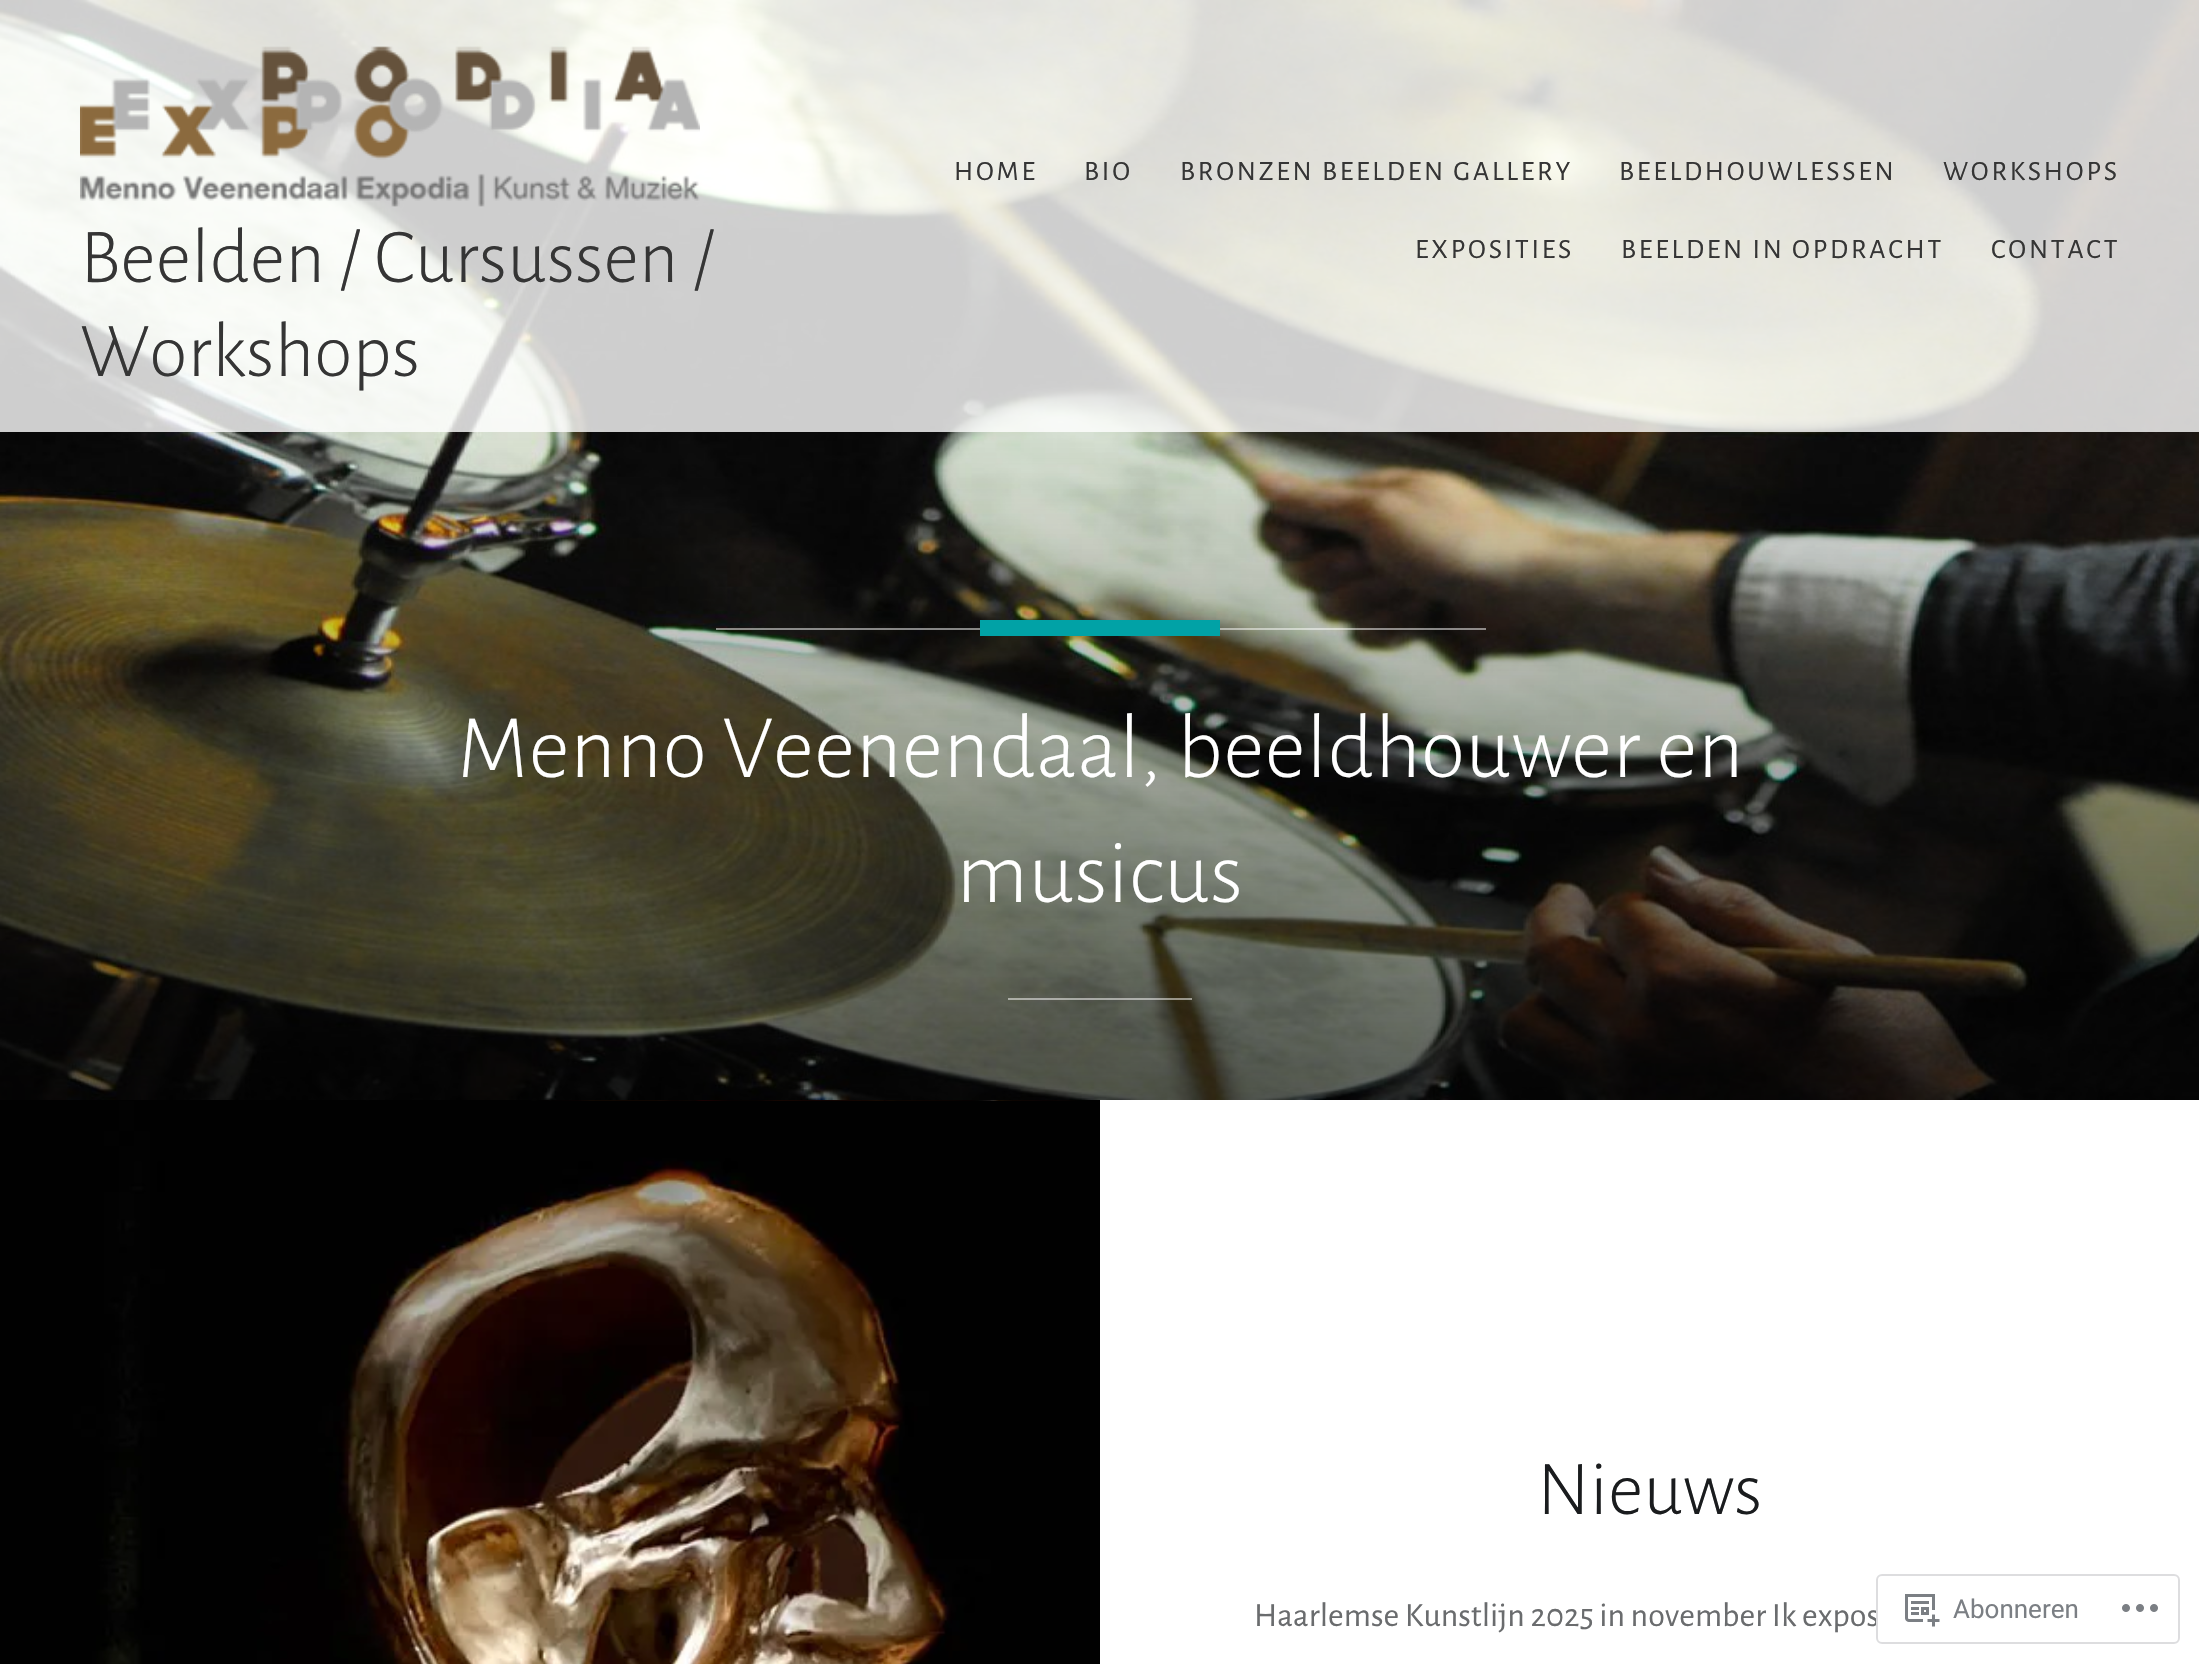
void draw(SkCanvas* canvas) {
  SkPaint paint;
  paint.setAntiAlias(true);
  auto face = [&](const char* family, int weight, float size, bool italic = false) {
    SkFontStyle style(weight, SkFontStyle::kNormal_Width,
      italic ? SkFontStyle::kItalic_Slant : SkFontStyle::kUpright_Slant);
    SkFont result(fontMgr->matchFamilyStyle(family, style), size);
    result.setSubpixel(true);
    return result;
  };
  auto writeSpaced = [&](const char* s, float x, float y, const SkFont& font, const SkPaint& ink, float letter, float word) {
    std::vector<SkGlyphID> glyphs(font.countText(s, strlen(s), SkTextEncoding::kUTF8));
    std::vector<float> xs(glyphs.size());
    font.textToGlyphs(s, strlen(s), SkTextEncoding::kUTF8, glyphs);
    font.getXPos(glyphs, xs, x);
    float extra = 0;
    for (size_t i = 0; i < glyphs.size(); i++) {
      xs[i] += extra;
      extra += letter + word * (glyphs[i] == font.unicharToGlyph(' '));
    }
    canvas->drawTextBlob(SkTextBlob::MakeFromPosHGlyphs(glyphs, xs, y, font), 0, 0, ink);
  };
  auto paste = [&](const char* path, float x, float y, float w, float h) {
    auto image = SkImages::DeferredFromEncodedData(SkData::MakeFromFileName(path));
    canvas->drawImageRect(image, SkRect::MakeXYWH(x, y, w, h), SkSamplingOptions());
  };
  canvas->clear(0xffffffff);
  paste("img/2.png", 0, 0, 2199, 1100);
  paint.setColor(0xccffffff);
  canvas->drawRect(SkRect::MakeXYWH(0, 0, 2199, 432), paint);
  paste("img/1.png", 80, 46, 620, 161);
  {
    const struct { float x, y, w, h; SkColor color; } items[] = {
      {716, 628, 770, 2, 0x80ffffff},
      {980, 620, 240, 16, 0xff01a2a6},
      {1008, 998, 184, 2, 0x80ffffff},
    };
    for (auto [x, y, w, h, color] : items) {
      paint.setColor(color);
      canvas->drawRect(SkRect::MakeXYWH(x, y, w, h), paint);
    }
  }
  paste("img/3.png", 0, 1100, 1100, 564);
  auto f0 = face("Alegreya Sans", 400, 28);
  paint.setColor(0xff353535);
  {
    const struct { const char* s; float x, y; } items[] = {
      {"HOME", 954, 180},
      {"BIO", 1084, 180},
      {"BRONZEN BEELDEN GALLERY", 1180, 180},
      {"BEELDHOUWLESSEN", 1619, 180},
      {"WORKSHOPS", 1943, 180},
      {"EXPOSITIES", 1415, 258},
      {"BEELDEN IN OPDRACHT", 1621, 258},
      {"CONTACT", 1991, 258},
    };
    for (auto [s, x, y] : items) {
      writeSpaced(s, x, y, f0, paint, 2.8f, 0);
    }
  }
  auto f1 = face("Alegreya Sans", 300, 78);
  canvas->drawString("Beelden / Cursussen /", 80, 282, f1, paint);
  canvas->drawString("Workshops", 80, 376, f1, paint);
  auto f2 = face("Alegreya Sans", 300, 91);
  paint.setColor(0xffffffff);
  canvas->drawString("Menno Veenendaal, beeldhouwer en", 457, 777, f2, paint);
  canvas->drawString("musicus", 956, 902, f2, paint);
  paint.setColor(0xff1a1c1e);
  canvas->drawString("Nieuws", 1537, 1514, f1, paint);
  auto f3 = face("Alegreya Sans", 400, 34);
  paint.setColor(0xff6a6c6e);
  canvas->drawString("Haarlemse Kunstlijn 2025 in november Ik expos", 1254, 1626, f3, paint);
  paint.setColor(0xfaffffff);
  canvas->drawRoundRect(SkRect::MakeXYWH(1876, 1574, 304, 70), 6, 6, paint);
  paint.setStroke(true);
  paint.setStrokeWidth(2);
  paint.setColor(0xfadcdcde);
  canvas->drawRoundRect(SkRect::MakeXYWH(1877, 1575, 302, 68), 5, 5, paint);
  paste("img/4.png", 1905, 1594, 35, 33);
  auto f4 = face("Roboto", 400, 26);
  paint.setStroke(false);
  paint.setColor(0xff7b7f84);
  canvas->drawString("Abonneren", 1953, 1618, f4, paint);
  paste("img/5.png", 2122, 1604, 36, 8);
}
